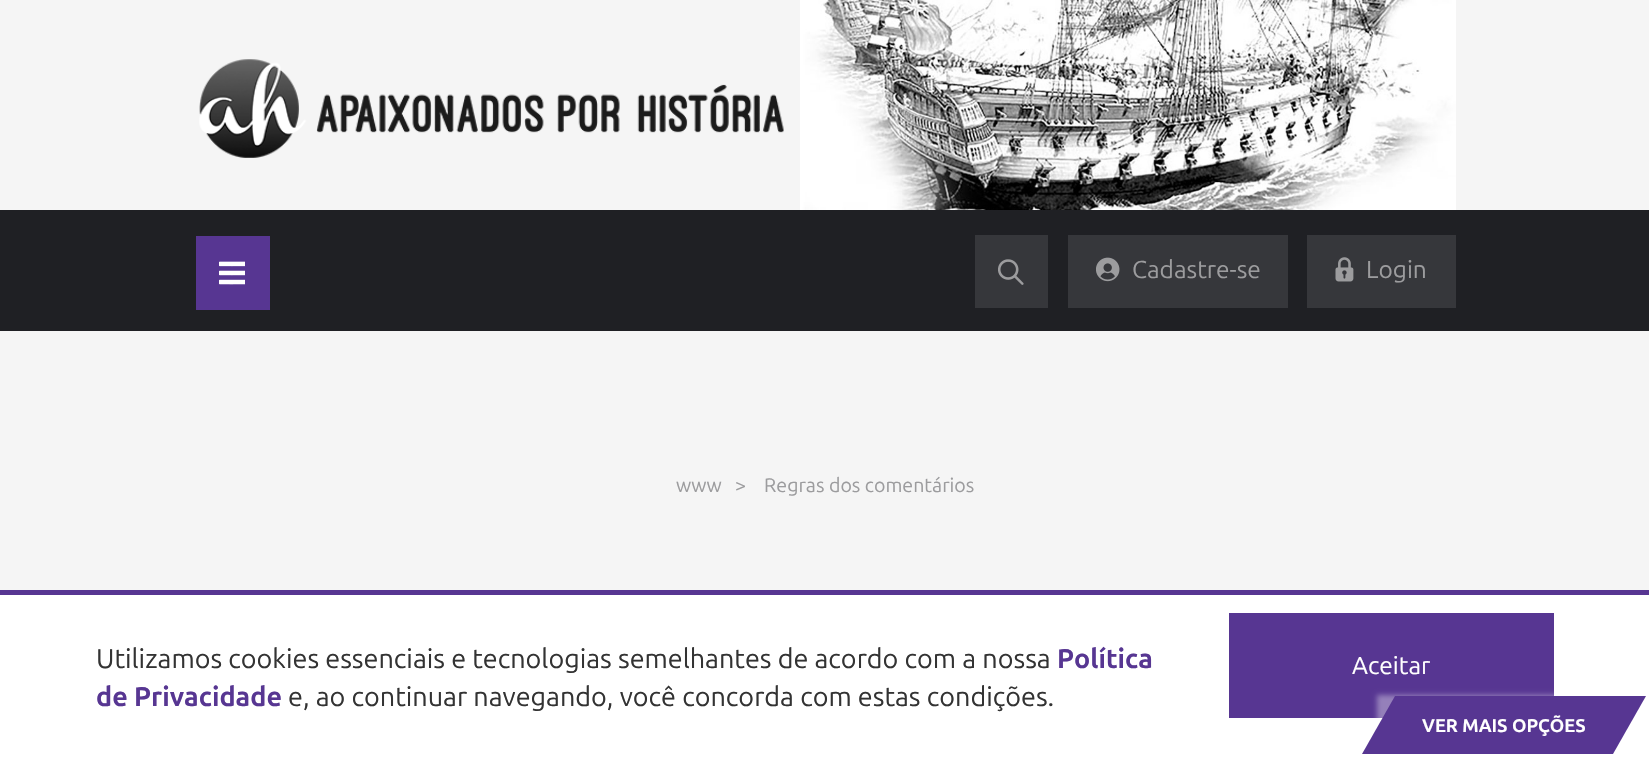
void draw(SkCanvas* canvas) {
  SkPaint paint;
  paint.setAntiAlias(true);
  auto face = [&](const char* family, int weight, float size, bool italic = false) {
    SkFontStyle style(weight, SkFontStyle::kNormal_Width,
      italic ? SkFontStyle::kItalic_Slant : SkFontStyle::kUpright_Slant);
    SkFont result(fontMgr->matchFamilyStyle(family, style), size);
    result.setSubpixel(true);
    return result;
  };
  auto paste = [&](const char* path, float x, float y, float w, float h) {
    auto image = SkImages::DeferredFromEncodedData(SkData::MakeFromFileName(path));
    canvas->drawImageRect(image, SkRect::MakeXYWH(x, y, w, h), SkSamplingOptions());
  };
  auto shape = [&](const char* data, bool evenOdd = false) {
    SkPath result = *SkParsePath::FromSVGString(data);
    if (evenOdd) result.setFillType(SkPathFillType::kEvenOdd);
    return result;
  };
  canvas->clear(0xfff5f5f5);
  paste("img/1.png", 199, 59, 585, 99);
  paste("img/2.png", 800, 0, 656, 210);
  paint.setColor(0xff1f2024);
  canvas->drawRect(SkRect::MakeXYWH(0, 210, 1649, 121), paint);
  paint.setColor(0xff573692);
  canvas->drawRect(SkRect::MakeXYWH(196, 236, 74, 74), paint);
  paste("img/3.png", 219, 261, 26, 24);
  paint.setColor(0xff36373b);
  canvas->drawRect(SkRect::MakeXYWH(975, 235, 73, 73), paint);
  paste("img/4.png", 998, 259, 26, 26);
  canvas->drawRect(SkRect::MakeXYWH(1068, 235, 220, 73), paint);
  paste("img/5.png", 1096, 257, 24, 25);
  canvas->drawRect(SkRect::MakeXYWH(1307, 235, 149, 73), paint);
  paste("img/6.png", 1335, 257, 19, 25);
  {
    const struct { float x, y, w, h; SkColor color; } items[] = {
      {0, 595, 1649, 166, 0xffffffff},
      {0, 590, 1649, 5, 0xff573692},
      {1229, 613, 325, 105, 0xff573692},
    };
    for (auto [x, y, w, h, color] : items) {
      paint.setColor(color);
      canvas->drawRect(SkRect::MakeXYWH(x, y, w, h), paint);
    }
  }
  paint.setColor(0x5effffff);
  paint.setMaskFilter(SkMaskFilter::MakeBlur(kNormal_SkBlurStyle, 2.5f));
  canvas->drawRect(SkRect::MakeXYWH(1377, 695, 254, 61), paint);
  paint.setMaskFilter(nullptr);
  paint.setColor(0xff573692);
  canvas->drawPath(shape("M1395 696H1646L1613 754H1362Z"), paint);
  auto f0 = face("Ubuntu", 400, 24.5f);
  paint.setColor(0xff9c9c9e);
  canvas->drawString("Cadastre-se", 1132, 278, f0, paint);
  canvas->drawString("Login", 1366, 278, f0, paint);
  auto f1 = face("Ubuntu", 400, 19.6f);
  canvas->drawString("www   >    Regras dos comentários", 676, 492, f1, paint);
  auto f2 = face("Ubuntu", 400, 26.95f);
  paint.setColor(0xff333333);
  canvas->drawString("Utilizamos cookies essenciais e tecnologias semelhantes de acordo com a nossa", 96, 668, f2, paint);
  auto f3 = face("Ubuntu", 700, 26.95f);
  paint.setColor(0xff573692);
  canvas->drawString("Política", 1057, 668, f3, paint);
  canvas->drawString("de Privacidade", 96, 706, f3, paint);
  paint.setColor(0xff333333);
  canvas->drawString("e, ao continuar navegando, você concorda com estas condições.", 288, 706, f2, paint);
  paint.setColor(0xffffffff);
  canvas->drawString("Aceitar", 1352, 674, f0, paint);
  auto f4 = face("Ubuntu", 700, 18.4f);
  canvas->drawString("VER MAIS OPÇÕES", 1422, 732, f4, paint);
}
